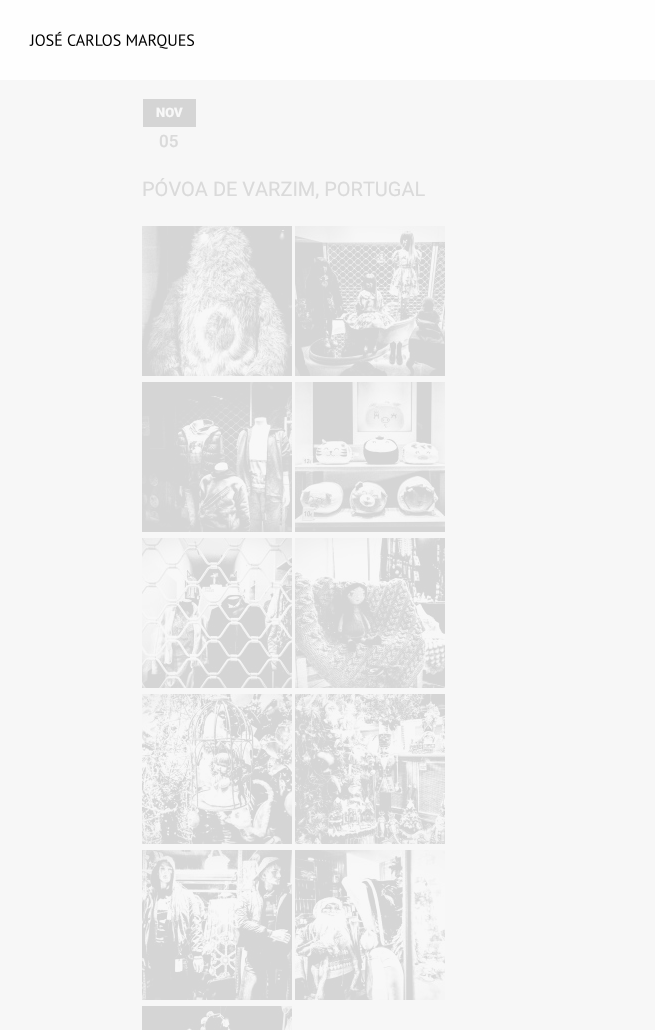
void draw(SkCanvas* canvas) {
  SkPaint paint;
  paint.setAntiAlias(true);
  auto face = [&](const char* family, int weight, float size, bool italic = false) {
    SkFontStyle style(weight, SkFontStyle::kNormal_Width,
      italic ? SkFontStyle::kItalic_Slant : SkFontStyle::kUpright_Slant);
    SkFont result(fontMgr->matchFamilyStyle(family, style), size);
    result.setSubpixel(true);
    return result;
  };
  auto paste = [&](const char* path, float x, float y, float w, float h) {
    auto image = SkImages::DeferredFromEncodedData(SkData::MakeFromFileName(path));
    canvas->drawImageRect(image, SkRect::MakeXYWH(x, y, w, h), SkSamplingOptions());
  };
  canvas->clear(0xfff7f7f7);
  paint.setColor(0xfffefefe);
  canvas->drawRect(SkRect::MakeXYWH(0, 0, 655, 80), paint);
  paste("img/1.png", 29, 31, 165, 18);
  paint.setColor(0xffd5d5d5);
  canvas->drawRect(SkRect::MakeXYWH(143, 99, 53, 28), paint);
  paste("img/2.png", 142, 226, 150, 150);
  paste("img/3.png", 295, 226, 150, 150);
  paste("img/4.png", 142, 382, 150, 150);
  paste("img/5.png", 295, 382, 150, 150);
  paste("img/6.png", 142, 538, 150, 150);
  paste("img/7.png", 295, 538, 150, 150);
  paste("img/8.png", 142, 694, 150, 150);
  paste("img/9.png", 295, 694, 150, 150);
  paste("img/10.png", 142, 850, 150, 150);
  paste("img/11.png", 295, 850, 150, 150);
  paste("img/12.png", 142, 1006, 150, 24);
  auto f0 = face("Roboto", 900, 13);
  paint.setColor(0xfff8f8f8);
  canvas->drawString("NOV", 156, 117, f0, paint);
  auto f1 = face("Roboto", 500, 17);
  paint.setColor(0xffdadada);
  canvas->drawString("05", 159, 147, f1, paint);
  auto f2 = face("Roboto", 400, 20);
  canvas->drawString("PÓVOA DE VARZIM, PORTUGAL", 142, 196, f2, paint);
}
